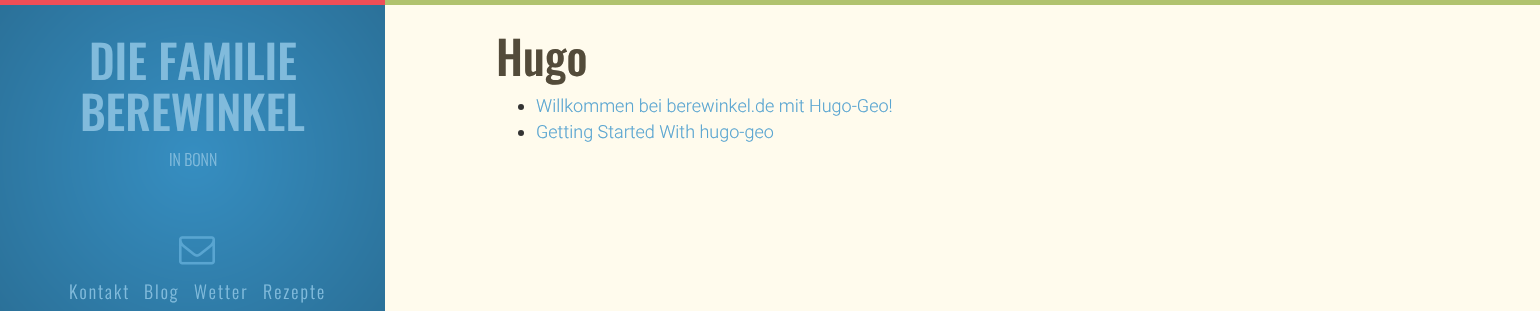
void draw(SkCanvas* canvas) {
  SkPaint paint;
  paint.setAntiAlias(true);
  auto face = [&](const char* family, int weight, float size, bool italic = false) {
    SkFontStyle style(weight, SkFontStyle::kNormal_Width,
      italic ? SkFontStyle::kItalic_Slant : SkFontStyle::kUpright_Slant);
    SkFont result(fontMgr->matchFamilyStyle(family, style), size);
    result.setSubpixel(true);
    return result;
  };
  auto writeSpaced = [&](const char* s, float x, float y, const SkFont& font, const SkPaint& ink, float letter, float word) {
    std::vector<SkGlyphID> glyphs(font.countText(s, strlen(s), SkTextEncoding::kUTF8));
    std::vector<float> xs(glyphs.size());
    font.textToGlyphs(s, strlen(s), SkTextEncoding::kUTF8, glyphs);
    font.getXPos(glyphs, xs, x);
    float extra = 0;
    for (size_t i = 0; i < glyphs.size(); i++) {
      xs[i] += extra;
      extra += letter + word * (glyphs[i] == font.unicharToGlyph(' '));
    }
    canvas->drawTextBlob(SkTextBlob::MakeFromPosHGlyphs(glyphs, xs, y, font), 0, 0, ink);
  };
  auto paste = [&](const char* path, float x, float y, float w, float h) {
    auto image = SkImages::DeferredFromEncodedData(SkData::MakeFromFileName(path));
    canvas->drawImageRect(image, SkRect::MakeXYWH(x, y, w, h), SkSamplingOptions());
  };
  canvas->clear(0xfffffbed);
  {
    const SkColor colors[] = {0xff368ec1, 0xff2b7199};
    const float stops[] = {0, 1};
    paint.setShader(SkGradientShader::MakeRadial({193, 158}, 246, colors, stops, 2, SkTileMode::kClamp));
    paint.setAlpha(255);
  }
  canvas->drawRect(SkRect::MakeXYWH(0, 5, 385, 306), paint);
  paint.setShader(nullptr);
  paint.setColor(0xffef4e57);
  canvas->drawRect(SkRect::MakeXYWH(0, 0, 385, 5), paint);
  paste("img/1.png", 179, 236, 36, 29);
  paint.setColor(0xffb0c26e);
  canvas->drawRect(SkRect::MakeXYWH(385, 0, 1155, 5), paint);
  paint.setColor(0xff333333);
  canvas->drawCircle(521, 107, 3, paint);
  canvas->drawCircle(521, 133, 3, paint);
  auto f0 = face("Oswald", 500, 46);
  paint.setColor(0xff81bbdc);
  canvas->drawString("DIE FAMILIE", 89, 80, f0, paint);
  canvas->drawString("BEREWINKEL", 80, 131, f0, paint);
  auto f1 = face("Oswald", 300, 16);
  canvas->drawString("IN BONN", 169, 166, f1, paint);
  auto f2 = face("Oswald", 300, 18);
  {
    const struct { const char* s; float x, y; } items[] = {
      {"Kontakt", 69, 299},
      {"Blog", 144, 299},
      {"Wetter", 194, 299},
      {"Rezepte", 263, 299},
    };
    for (auto [s, x, y] : items) {
      writeSpaced(s, x, y, f2, paint, 2, 0);
    }
  }
  paint.setColor(0xff534b3a);
  canvas->drawString("Hugo", 496, 76, f0, paint);
  auto f3 = face("Roboto", 300, 18);
  paint.setColor(0xff59a5d1);
  canvas->drawString("Willkommen bei berewinkel.de mit Hugo-Geo!", 536, 112, f3, paint);
  canvas->drawString("Getting Started With hugo-geo", 536, 138, f3, paint);
}
